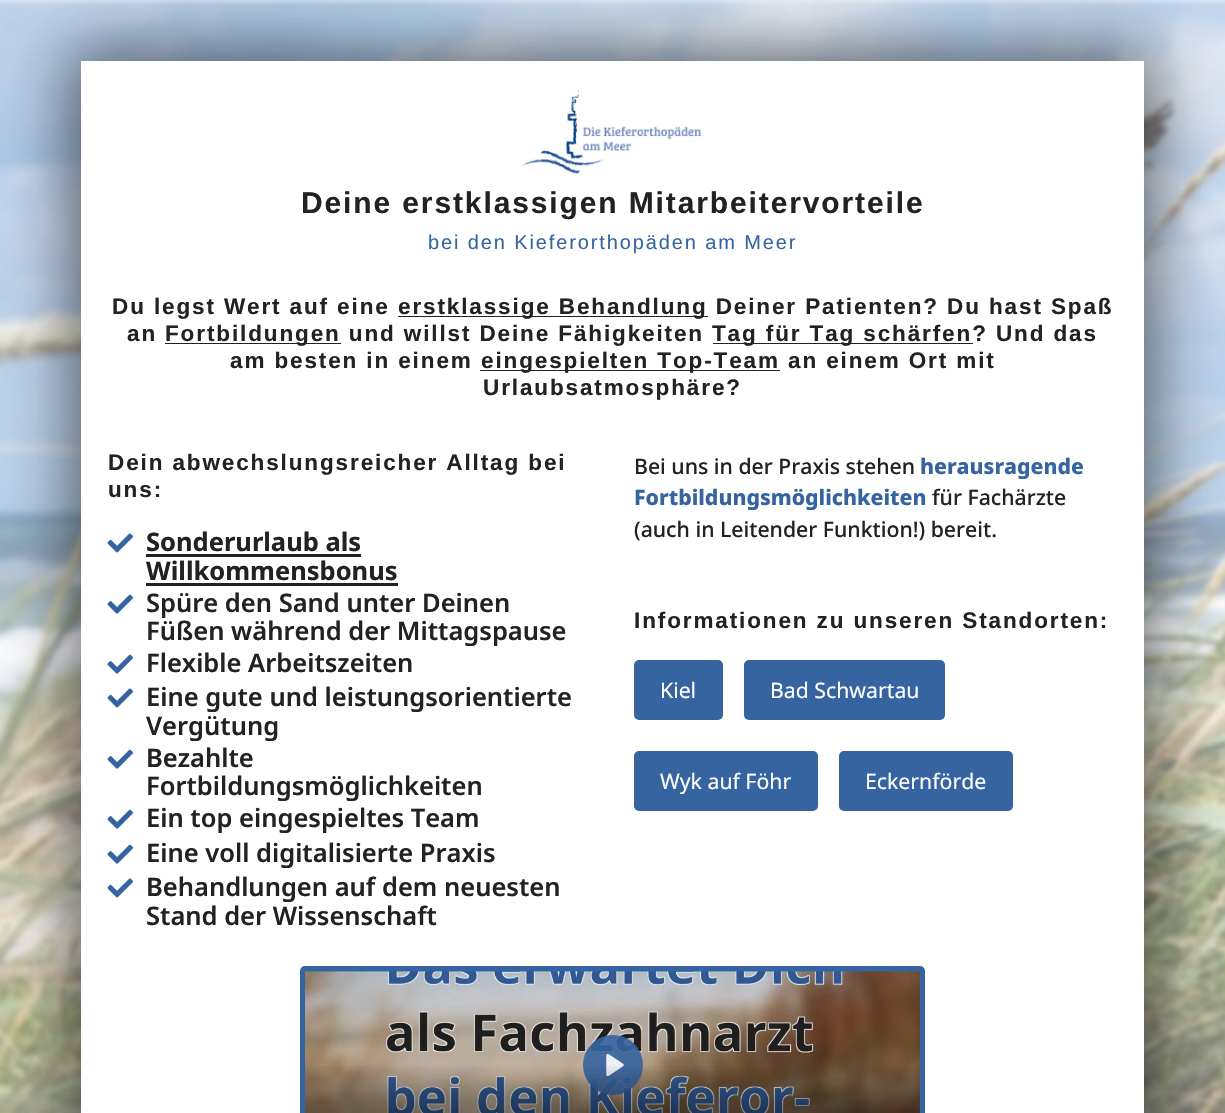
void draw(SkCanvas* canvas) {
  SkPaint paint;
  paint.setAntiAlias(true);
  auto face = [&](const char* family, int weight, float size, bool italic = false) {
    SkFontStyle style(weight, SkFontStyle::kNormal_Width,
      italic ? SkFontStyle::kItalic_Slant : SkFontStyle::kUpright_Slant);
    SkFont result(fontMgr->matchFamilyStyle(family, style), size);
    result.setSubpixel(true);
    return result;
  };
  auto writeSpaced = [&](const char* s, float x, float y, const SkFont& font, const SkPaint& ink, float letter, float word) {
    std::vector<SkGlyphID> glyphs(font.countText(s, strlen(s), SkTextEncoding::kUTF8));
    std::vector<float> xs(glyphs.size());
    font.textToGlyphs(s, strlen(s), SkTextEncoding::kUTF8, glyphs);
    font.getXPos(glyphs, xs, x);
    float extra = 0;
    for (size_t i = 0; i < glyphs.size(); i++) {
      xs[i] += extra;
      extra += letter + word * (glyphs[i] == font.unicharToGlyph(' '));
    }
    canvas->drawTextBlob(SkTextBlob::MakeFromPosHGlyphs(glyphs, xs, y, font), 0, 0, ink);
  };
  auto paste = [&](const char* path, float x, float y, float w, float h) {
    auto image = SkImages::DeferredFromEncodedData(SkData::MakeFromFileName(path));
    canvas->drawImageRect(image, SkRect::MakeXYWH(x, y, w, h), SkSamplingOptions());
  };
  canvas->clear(0xffffffff);
  paste("img/1.png", 0, 0, 1225, 1113);
  paint.setColor(0x8c000000);
  paint.setMaskFilter(SkMaskFilter::MakeBlur(kNormal_SkBlurStyle, 31));
  canvas->drawRect(SkRect::MakeXYWH(69, 49, 1087, 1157), paint);
  paint.setMaskFilter(nullptr);
  paint.setColor(0xffffffff);
  canvas->drawRect(SkRect::MakeXYWH(81, 61, 1063, 1052), paint);
  paste("img/2.png", 521, 89, 181, 85);
  {
    const struct { float x, y, w, h; SkColor color; } items[] = {
      {398, 316, 310, 1, 0xff222222},
      {165, 343, 176, 1, 0xff222222},
      {713, 343, 260, 1, 0xff222222},
      {480, 370, 300, 1, 0xff222222},
    };
    for (auto [x, y, w, h, color] : items) {
      paint.setColor(color);
      canvas->drawRect(SkRect::MakeXYWH(x, y, w, h), paint);
    }
  }
  paste("img/3.png", 107, 533, 26, 20);
  canvas->drawRect(SkRect::MakeXYWH(146, 554, 215, 3), paint);
  canvas->drawRect(SkRect::MakeXYWH(146, 583, 252, 3), paint);
  paste("img/4.png", 107, 594, 26, 20);
  paste("img/4.png", 107, 654, 26, 20);
  paste("img/3.png", 107, 688, 26, 20);
  paste("img/4.png", 107, 749, 26, 20);
  paste("img/4.png", 107, 809, 26, 20);
  paste("img/4.png", 107, 844, 26, 20);
  paste("img/3.png", 107, 878, 26, 20);
  paint.setColor(0xff3564a1);
  canvas->drawRoundRect(SkRect::MakeXYWH(634, 660, 89, 60), 5, 5, paint);
  canvas->drawRoundRect(SkRect::MakeXYWH(744, 660, 201, 60), 5, 5, paint);
  canvas->drawRoundRect(SkRect::MakeXYWH(634, 751, 184, 60), 5, 5, paint);
  canvas->drawRoundRect(SkRect::MakeXYWH(839, 751, 174, 60), 5, 5, paint);
  canvas->drawRoundRect(SkRect::MakeXYWH(302.5f, 968.5f, 620, 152), 2.5f, 2.5f, paint);
  paint.setStroke(true);
  paint.setStrokeWidth(5);
  canvas->drawRoundRect(SkRect::MakeXYWH(302.5f, 968.5f, 620, 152), 2.5f, 2.5f, paint);
  paste("img/5.png", 305, 971, 615, 142);
  paint.setStroke(false);
  paint.setColor(0xe63564a1);
  canvas->drawCircle(613, 1065, 30, paint);
  paste("img/6.png", 606, 1054, 18, 22);
  {
    const SkColor colors[] = {0x00000000, 0xbf000000};
    const float stops[] = {0, 1};
    const SkPoint ends[] = {{613, 1063}, {613, 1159}};
    paint.setShader(SkGradientShader::MakeLinear(ends, colors, stops, 2, SkTileMode::kClamp));
    paint.setAlpha(255);
  }
  canvas->drawRect(SkRect::MakeXYWH(305, 1066, 615, 47), paint);
  auto f0 = face("Liberation Sans", 700, 30);
  paint.setShader(nullptr);
  paint.setColor(0xff222222);
  writeSpaced("Deine erstklassigen Mitarbeitervorteile", 301, 213, f0, paint, 1.88f, 0);
  auto f1 = face("Liberation Sans", 400, 20);
  paint.setColor(0xff3564a1);
  writeSpaced("bei den Kieferorthopäden am Meer", 428, 249, f1, paint, 1.88f, 0);
  auto f2 = face("Liberation Sans", 700, 22.5f);
  paint.setColor(0xff222222);
  {
    const struct { const char* s; float x, y; } items[] = {
      {"Du legst Wert auf eine", 112, 314},
      {"erstklassige Behandlung Deiner Patienten? Du hast Spaß", 398, 314},
      {"an", 127, 341},
      {"Fortbildungen und willst Deine Fähigkeiten", 165, 341},
      {"Tag für Tag schärfen? Und das", 712, 341},
      {"am besten in einem", 230, 368},
      {"eingespielten Top-Team an einem Ort mit", 481, 368},
      {"Urlaubsatmosphäre?", 483, 395},
      {"Dein abwechslungsreicher Alltag bei", 108, 470},
      {"uns:", 108, 497},
    };
    for (auto [s, x, y] : items) {
      writeSpaced(s, x, y, f2, paint, 1.88f, 0);
    }
  }
  auto f3 = face("Noto Sans", 700, 25.5f);
  canvas->drawString("Sonderurlaub als", 146, 551, f3, paint);
  canvas->drawString("Willkommensbonus", 146, 580, f3, paint);
  auto f4 = face("Noto Sans", 600, 25.5f);
  {
    const struct { const char* s; float x, y; } items[] = {
      {"Spüre den Sand unter Deinen", 146, 612},
      {"Füßen während der Mittagspause", 146, 640},
      {"Flexible Arbeitszeiten", 146, 672},
      {"Eine gute und leistungsorientierte", 146, 706},
      {"Vergütung", 146, 735},
      {"Bezahlte", 146, 767},
      {"Fortbildungsmöglichkeiten", 146, 795},
      {"Ein top eingespieltes Team", 146, 827},
      {"Eine voll digitalisierte Praxis", 146, 862},
      {"Behandlungen auf dem neuesten", 146, 896},
      {"Stand der Wissenschaft", 146, 925},
    };
    for (auto [s, x, y] : items) {
      canvas->drawString(s, x, y, f4, paint);
    }
  }
  auto f5 = face("Noto Sans", 500, 21.25f);
  canvas->drawString("Bei uns in der Praxis stehen", 634, 474, f5, paint);
  auto f6 = face("Noto Sans", 800, 21.25f);
  paint.setColor(0xff3564a1);
  canvas->drawString("herausragende", 920, 474, f6, paint);
  canvas->drawString("Fortbildungsmöglichkeiten", 634, 505, f6, paint);
  paint.setColor(0xff222222);
  canvas->drawString("für Fachärzte", 932, 505, f5, paint);
  canvas->drawString("(auch in Leitender Funktion!) bereit.", 634, 537, f5, paint);
  writeSpaced("Informationen zu unseren Standorten:", 634, 628, f2, paint, 1.88f, 0);
  auto f7 = face("Noto Sans", 400, 21.25f);
  paint.setColor(0xffffffff);
  {
    const struct { const char* s; float x, y; } items[] = {
      {"Kiel", 660, 698},
      {"Bad Schwartau", 770, 698},
      {"Wyk auf Föhr", 660, 789},
      {"Eckernförde", 865, 789},
    };
    for (auto [s, x, y] : items) {
      canvas->drawString(s, x, y, f7, paint);
    }
  }
}
